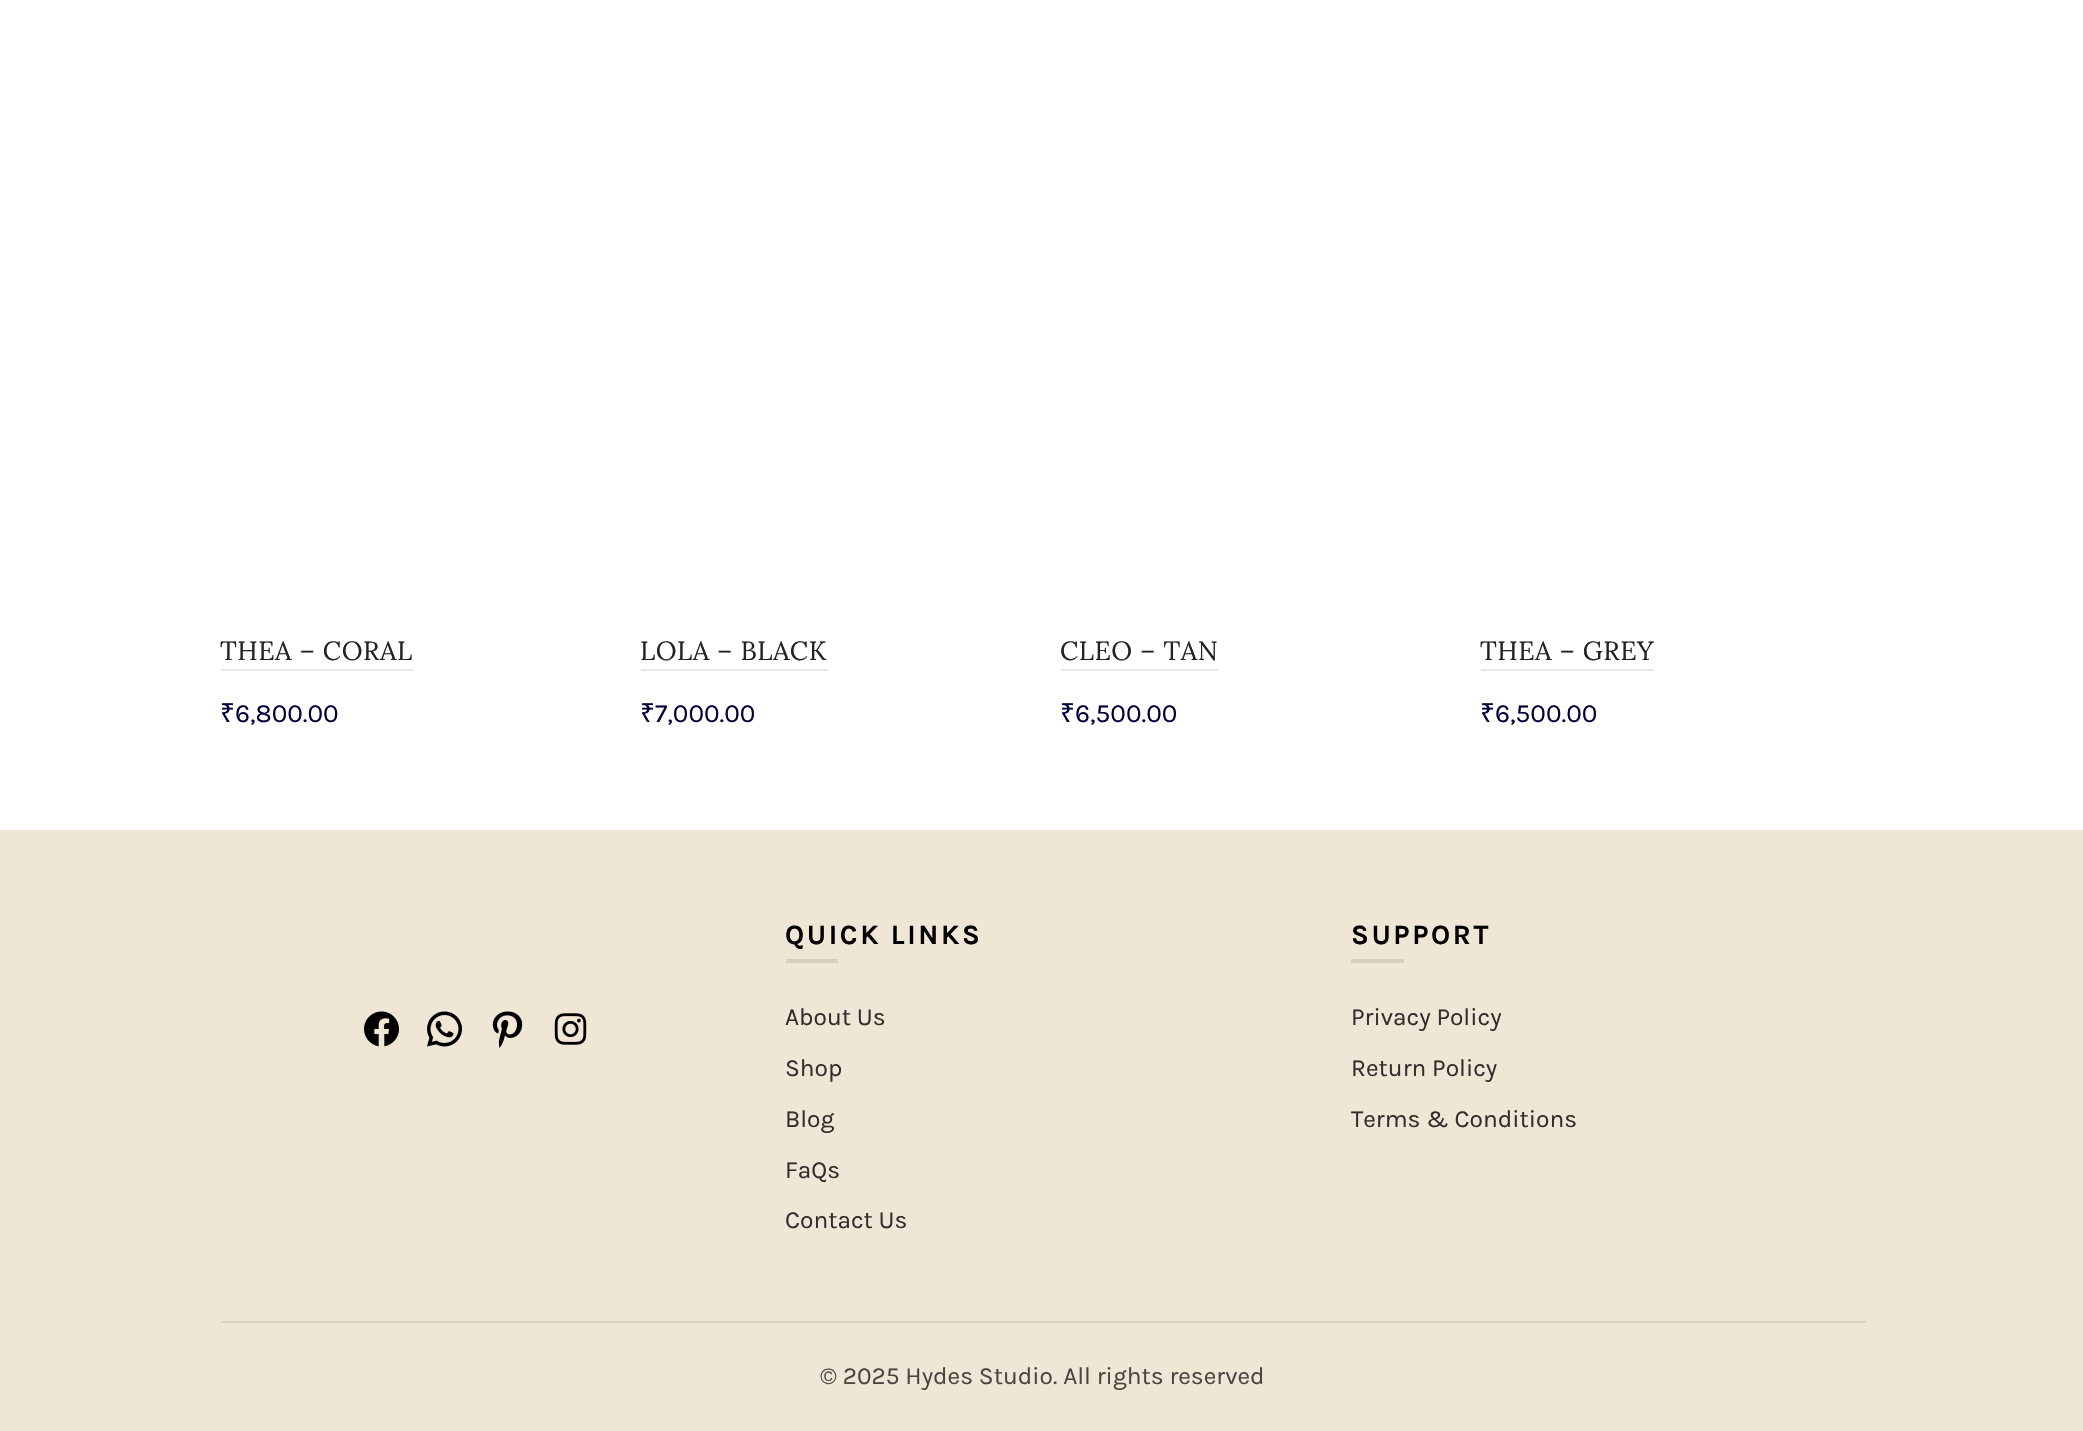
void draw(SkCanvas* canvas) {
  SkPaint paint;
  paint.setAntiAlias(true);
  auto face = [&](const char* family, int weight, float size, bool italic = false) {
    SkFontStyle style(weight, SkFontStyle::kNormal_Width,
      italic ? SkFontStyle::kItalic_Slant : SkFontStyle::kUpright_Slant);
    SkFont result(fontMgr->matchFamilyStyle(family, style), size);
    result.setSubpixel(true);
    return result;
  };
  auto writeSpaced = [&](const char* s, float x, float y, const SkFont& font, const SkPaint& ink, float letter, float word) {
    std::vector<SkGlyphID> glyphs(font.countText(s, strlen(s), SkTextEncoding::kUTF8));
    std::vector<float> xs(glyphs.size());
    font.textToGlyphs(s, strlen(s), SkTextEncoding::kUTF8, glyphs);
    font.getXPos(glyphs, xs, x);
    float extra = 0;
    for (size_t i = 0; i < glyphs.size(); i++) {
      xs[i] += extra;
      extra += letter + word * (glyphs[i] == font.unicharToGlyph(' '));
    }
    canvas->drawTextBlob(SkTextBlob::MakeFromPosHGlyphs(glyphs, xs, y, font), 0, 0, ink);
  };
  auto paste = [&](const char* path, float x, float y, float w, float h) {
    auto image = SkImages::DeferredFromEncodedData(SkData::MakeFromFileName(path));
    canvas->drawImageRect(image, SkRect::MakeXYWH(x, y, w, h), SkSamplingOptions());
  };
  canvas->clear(0xffffffff);
  {
    const struct { float x, y, w, h; SkColor color; } items[] = {
      {221, 669, 192, 2, 0xffe6e6e6},
      {641, 669, 187, 2, 0xffe6e6e6},
      {1061, 669, 157, 2, 0xffe6e6e6},
      {1481, 669, 173, 2, 0xffe6e6e6},
      {0, 830, 2083, 601, 0xffefe6d6},
    };
    for (auto [x, y, w, h, color] : items) {
      paint.setColor(color);
      canvas->drawRect(SkRect::MakeXYWH(x, y, w, h), paint);
    }
  }
  paste("img/1.png", 364, 1011, 35, 36);
  paste("img/2.png", 427, 1011, 35, 36);
  paste("img/3.png", 492, 1011, 31, 37);
  paste("img/4.png", 554, 1013, 33, 32);
  {
    const struct { float x, y, w, h; SkColor color; } items[] = {
      {786, 959, 52, 4, 0xffd7cfc1},
      {1351, 959, 53, 4, 0xffd7cfc1},
      {221, 1321, 1645, 2, 0xffd8d1c4},
    };
    for (auto [x, y, w, h, color] : items) {
      paint.setColor(color);
      canvas->drawRect(SkRect::MakeXYWH(x, y, w, h), paint);
    }
  }
  auto f0 = face("Lora", 400, 26.25f);
  paint.setColor(0xff252222);
  writeSpaced("THEA – CORAL", 220, 660, f0, paint, 0.5f, 0);
  auto f1 = face("Noto Sans", 400, 26.25f);
  paint.setColor(0xff000138);
  canvas->drawString("₹", 220, 722, f1, paint);
  auto f2 = face("Karla", 400, 26.25f);
  canvas->drawString("6,800.00", 235, 722, f2, paint);
  paint.setColor(0xff252222);
  writeSpaced("LOLA – BLACK", 640, 660, f0, paint, 0.5f, 0);
  paint.setColor(0xff000138);
  canvas->drawString("₹", 640, 722, f1, paint);
  canvas->drawString("7,000.00", 655, 722, f2, paint);
  paint.setColor(0xff252222);
  writeSpaced("CLEO – TAN", 1060, 660, f0, paint, 0.5f, 0);
  paint.setColor(0xff000138);
  canvas->drawString("₹", 1060, 722, f1, paint);
  canvas->drawString("6,500.00", 1075, 722, f2, paint);
  paint.setColor(0xff252222);
  writeSpaced("THEA – GREY", 1480, 660, f0, paint, 0.5f, 0);
  paint.setColor(0xff000138);
  canvas->drawString("₹", 1480, 722, f1, paint);
  canvas->drawString("6,500.00", 1495, 722, f2, paint);
  auto f3 = face("Karla", 700, 28);
  paint.setColor(0xff000000);
  writeSpaced("QUICK LINKS", 785, 944, f3, paint, 2.6f, 0);
  auto f4 = face("Karla", 400, 24.5f);
  paint.setColor(0xff302e2b);
  {
    const struct { const char* s; float x, y; } items[] = {
      {"About Us", 785, 1025},
      {"Shop", 785, 1076},
      {"Blog", 785, 1127},
      {"FaQs", 785, 1178},
      {"Contact Us", 785, 1228},
    };
    for (auto [s, x, y] : items) {
      canvas->drawString(s, x, y, f4, paint);
    }
  }
  paint.setColor(0xff000000);
  writeSpaced("SUPPORT", 1351, 944, f3, paint, 2.6f, 0);
  paint.setColor(0xff302e2b);
  {
    const struct { const char* s; float x, y; } items[] = {
      {"Privacy Policy", 1351, 1025},
      {"Return Policy", 1351, 1076},
      {"Terms & Conditions", 1351, 1127},
    };
    for (auto [s, x, y] : items) {
      canvas->drawString(s, x, y, f4, paint);
    }
  }
  paint.setColor(0xff484540);
  canvas->drawString("© 2025 Hydes Studio. All rights reserved", 820, 1384, f4, paint);
}
